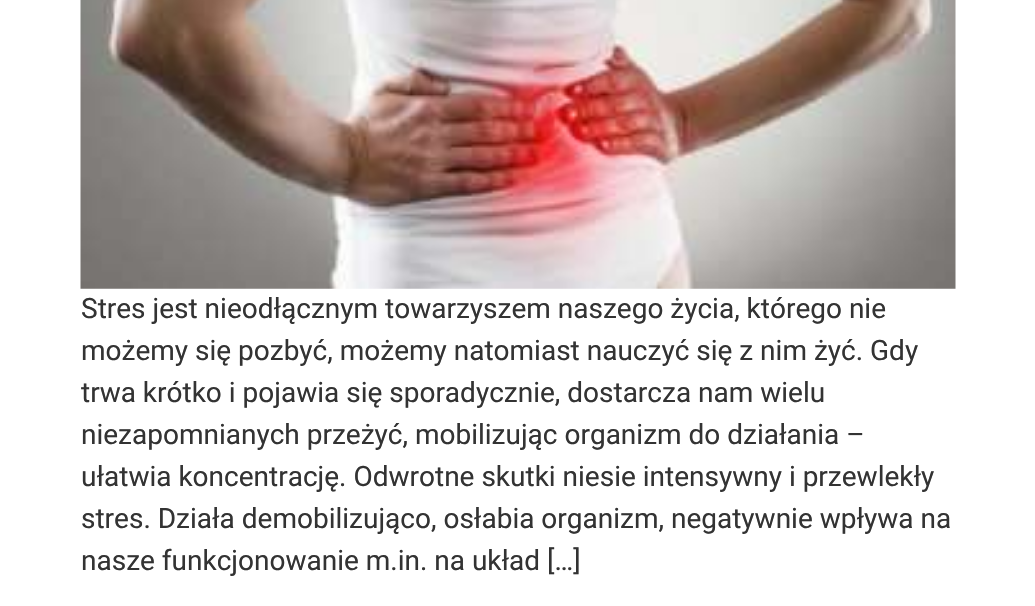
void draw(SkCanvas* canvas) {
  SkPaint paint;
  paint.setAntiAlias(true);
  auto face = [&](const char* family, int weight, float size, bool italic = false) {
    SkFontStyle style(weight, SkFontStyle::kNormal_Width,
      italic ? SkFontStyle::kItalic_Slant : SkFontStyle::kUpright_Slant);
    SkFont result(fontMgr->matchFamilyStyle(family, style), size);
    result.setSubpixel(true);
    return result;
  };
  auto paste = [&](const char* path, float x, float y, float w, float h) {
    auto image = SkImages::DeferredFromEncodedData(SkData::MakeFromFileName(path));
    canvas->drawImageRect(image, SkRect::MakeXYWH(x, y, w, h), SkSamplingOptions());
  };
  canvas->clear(0xffffffff);
  paste("img/1.png", 80, 0, 876, 289);
  auto f0 = face("Roboto", 400, 28);
  paint.setColor(0xff333333);
  {
    const struct { const char* s; float x, y; } items[] = {
      {"Stres jest nieodłącznym towarzyszem naszego życia, którego nie", 81, 318},
      {"możemy się pozbyć, możemy natomiast nauczyć się z nim żyć. Gdy", 81, 360},
      {"trwa krótko i pojawia się sporadycznie, dostarcza nam wielu", 81, 402},
      {"niezapomnianych przeżyć, mobilizując organizm do działania –", 81, 444},
      {"ułatwia koncentrację. Odwrotne skutki niesie intensywny i przewlekły", 81, 486},
      {"stres. Działa demobilizująco, osłabia organizm, negatywnie wpływa na", 81, 528},
      {"nasze funkcjonowanie m.in. na układ […]", 81, 570},
    };
    for (auto [s, x, y] : items) {
      canvas->drawString(s, x, y, f0, paint);
    }
  }
}
